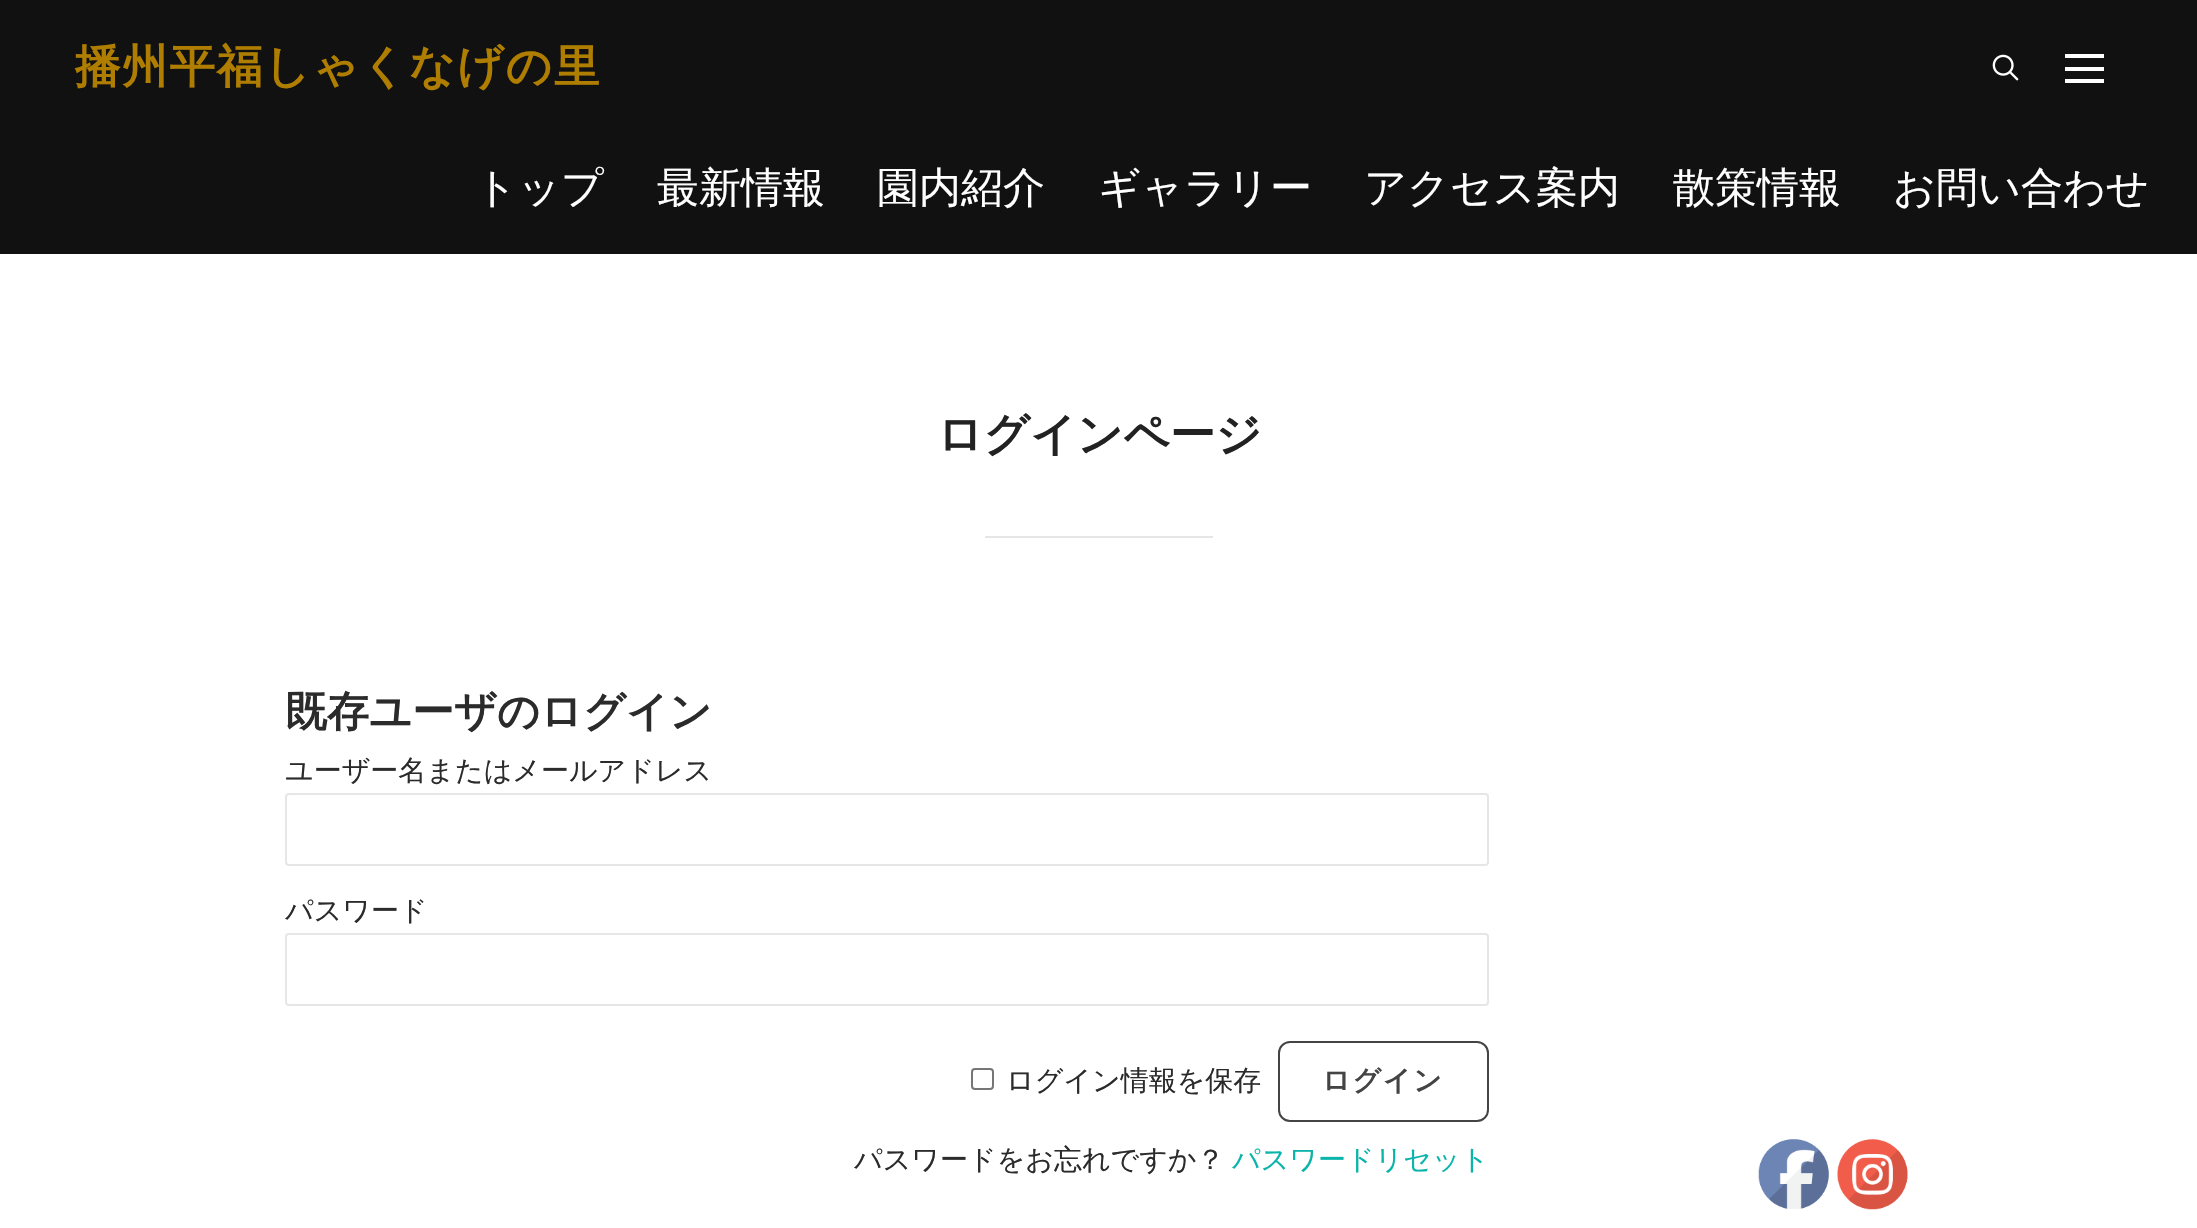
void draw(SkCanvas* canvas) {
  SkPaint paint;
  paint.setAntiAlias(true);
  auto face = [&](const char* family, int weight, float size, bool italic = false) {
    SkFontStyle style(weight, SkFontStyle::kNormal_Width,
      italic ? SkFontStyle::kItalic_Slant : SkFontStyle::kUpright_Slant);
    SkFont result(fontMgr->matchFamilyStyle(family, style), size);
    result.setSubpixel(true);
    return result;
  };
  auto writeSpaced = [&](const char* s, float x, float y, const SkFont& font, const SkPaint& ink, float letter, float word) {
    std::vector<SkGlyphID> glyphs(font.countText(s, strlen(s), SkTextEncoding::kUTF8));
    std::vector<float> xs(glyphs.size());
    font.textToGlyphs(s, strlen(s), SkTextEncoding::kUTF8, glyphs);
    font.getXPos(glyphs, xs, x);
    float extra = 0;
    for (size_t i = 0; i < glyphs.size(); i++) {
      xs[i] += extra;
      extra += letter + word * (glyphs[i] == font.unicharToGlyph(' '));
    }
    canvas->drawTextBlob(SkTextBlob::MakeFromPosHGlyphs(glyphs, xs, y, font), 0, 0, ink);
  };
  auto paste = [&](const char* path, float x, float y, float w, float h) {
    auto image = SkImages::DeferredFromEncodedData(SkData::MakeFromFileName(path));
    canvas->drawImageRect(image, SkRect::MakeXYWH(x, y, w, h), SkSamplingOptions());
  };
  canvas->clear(0xffffffff);
  paint.setColor(0xff111111);
  canvas->drawRect(SkRect::MakeXYWH(0, 0, 2197, 254), paint);
  paste("img/1.png", 1992, 54, 27, 27);
  {
    const struct { float x, y, w, h; SkColor color; } items[] = {
      {2065, 54, 39, 4, 0xffffffff},
      {2065, 67, 39, 4, 0xffffffff},
      {2065, 79, 39, 4, 0xffffffff},
      {985, 536, 228, 2, 0xffe6e6e6},
    };
    for (auto [x, y, w, h, color] : items) {
      paint.setColor(color);
      canvas->drawRect(SkRect::MakeXYWH(x, y, w, h), paint);
    }
  }
  paint.setStroke(true);
  paint.setStrokeWidth(2);
  canvas->drawRoundRect(SkRect::MakeXYWH(286, 794, 1202, 71), 3, 3, paint);
  canvas->drawRoundRect(SkRect::MakeXYWH(286, 934, 1202, 71), 3, 3, paint);
  paint.setColor(0xff767676);
  canvas->drawRoundRect(SkRect::MakeXYWH(972, 1069, 21, 20), 3, 3, paint);
  paint.setColor(0xff444444);
  canvas->drawRoundRect(SkRect::MakeXYWH(1279, 1042, 209, 79), 11, 11, paint);
  paste("img/2.png", 1758, 1139, 71, 70);
  paste("img/3.png", 1837, 1139, 71, 71);
  auto f0 = face("WenQuanYi Zen Hei", 700, 45.5f);
  paint.setStroke(false);
  paint.setColor(0xffaf7e00);
  writeSpaced("播州平福しゃくなげの里", 75, 82, f0, paint, 1.75f, 0);
  auto f1 = face("WenQuanYi Zen Hei", 500, 42);
  paint.setColor(0xffffffff);
  {
    const struct { const char* s; float x, y; } items[] = {
      {"トップ", 475, 202},
      {"最新情報", 657, 202},
      {"園内紹介", 877, 202},
      {"ギャラリー", 1098, 202},
      {"アクセス案内", 1364, 202},
      {"散策情報", 1673, 202},
      {"お問い合わせ", 1893, 202},
    };
    for (auto [s, x, y] : items) {
      canvas->drawString(s, x, y, f1, paint);
    }
  }
  paint.setColor(0xff222222);
  canvas->drawString("ログインページ", 937, 450, f0, paint);
  auto f2 = face("WenQuanYi Zen Hei", 700, 42);
  paint.setColor(0xff2b2b2b);
  canvas->drawString("既存ユーザのログイン", 285, 726, f2, paint);
  auto f3 = face("WenQuanYi Zen Hei", 500, 28);
  {
    const struct { const char* s; float x, y; } items[] = {
      {"ユーザー名またはメールアドレス", 285, 780},
      {"パスワード", 285, 920},
      {"ログイン情報を保存", 1006, 1090},
    };
    for (auto [s, x, y] : items) {
      canvas->drawString(s, x, y, f3, paint);
    }
  }
  auto f4 = face("WenQuanYi Zen Hei", 700, 28);
  paint.setColor(0xff444444);
  writeSpaced("ログイン", 1322, 1090, f4, paint, 1.75f, 0);
  paint.setColor(0xff2b2b2b);
  canvas->drawString("パスワードをお忘れですか？", 854, 1169, f3, paint);
  paint.setColor(0xff0bb4aa);
  canvas->drawString("パスワードリセット", 1232, 1169, f3, paint);
}
